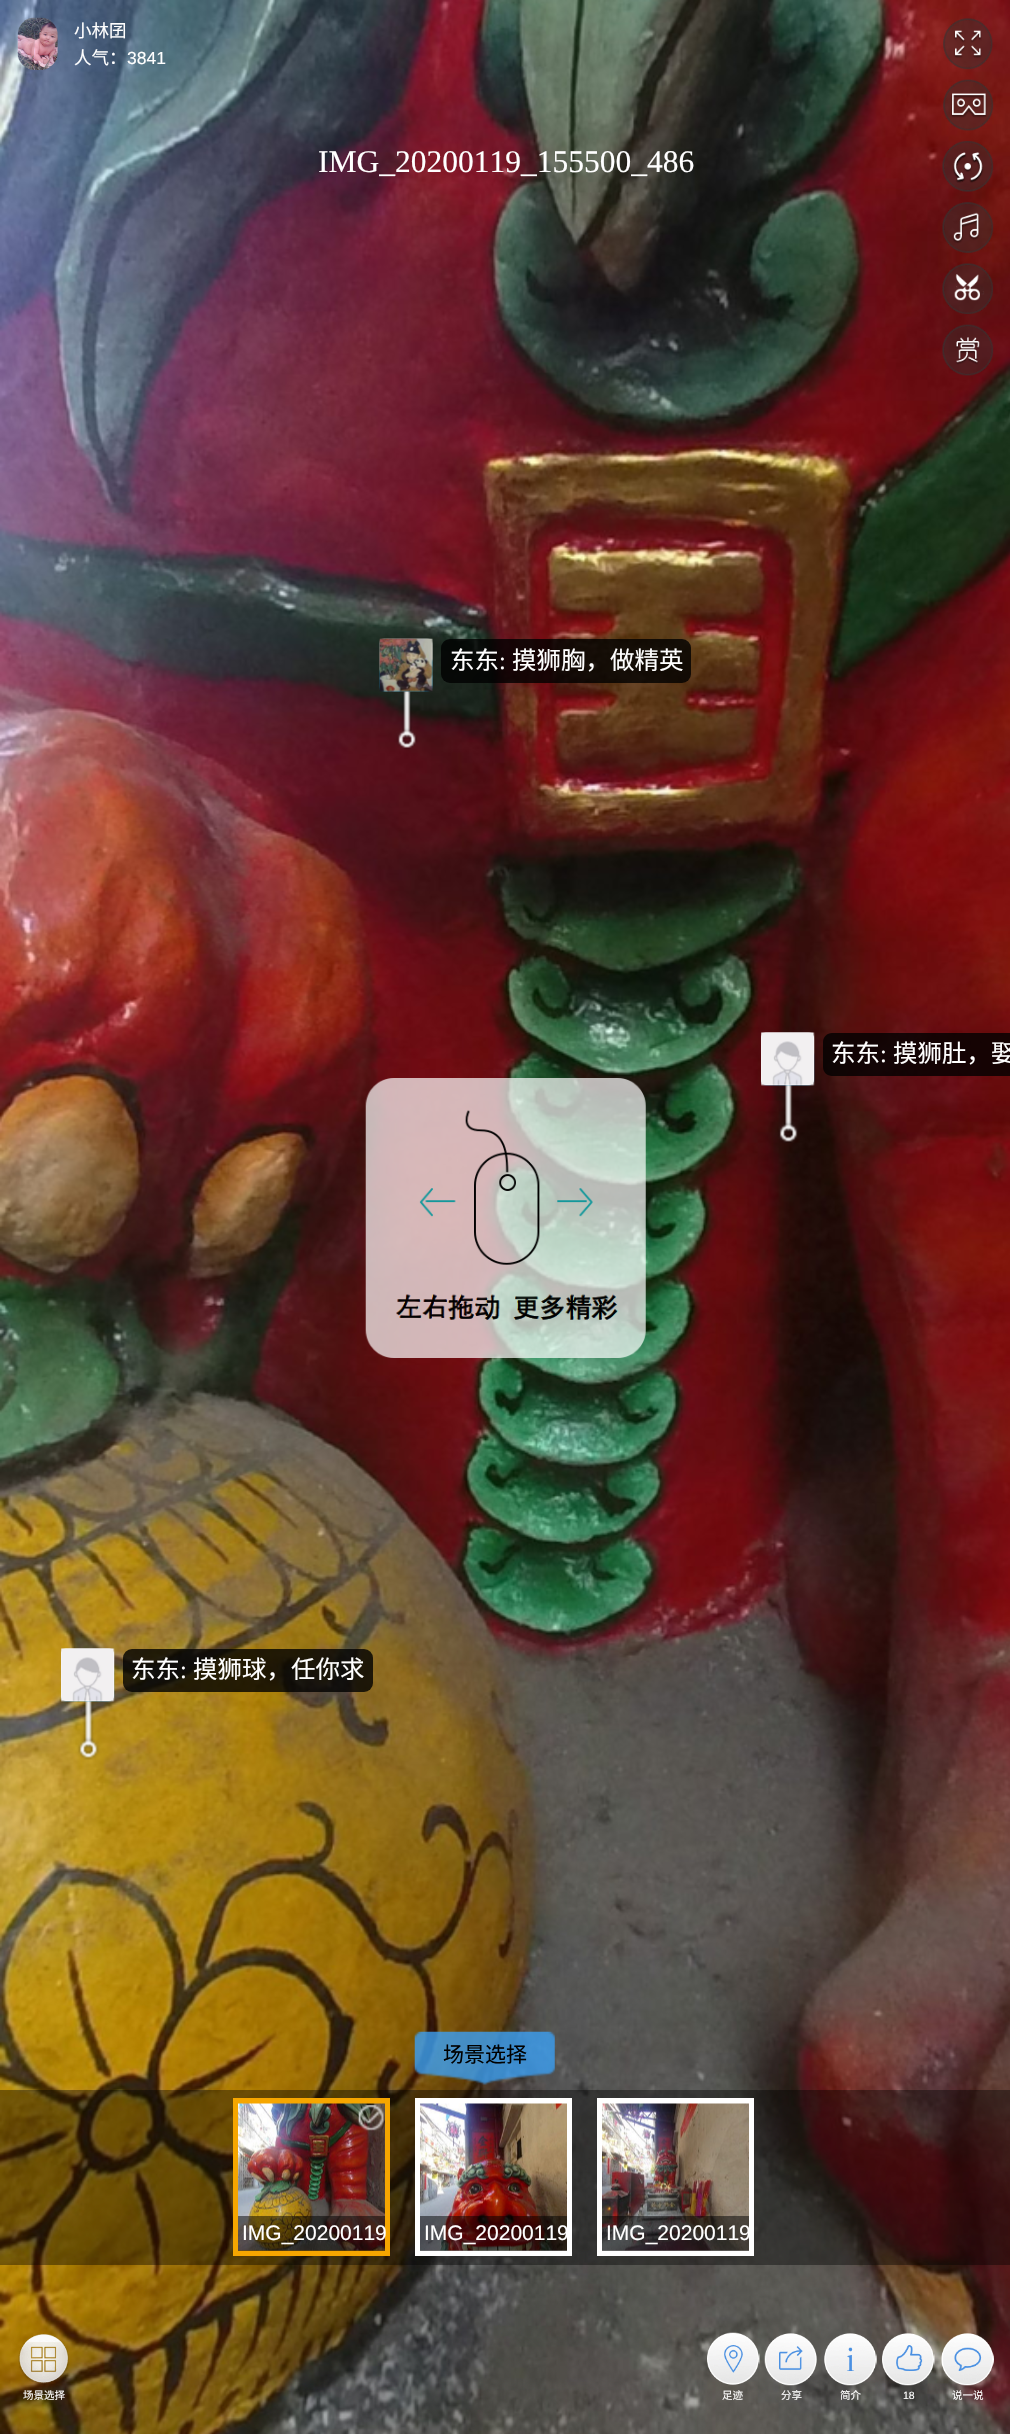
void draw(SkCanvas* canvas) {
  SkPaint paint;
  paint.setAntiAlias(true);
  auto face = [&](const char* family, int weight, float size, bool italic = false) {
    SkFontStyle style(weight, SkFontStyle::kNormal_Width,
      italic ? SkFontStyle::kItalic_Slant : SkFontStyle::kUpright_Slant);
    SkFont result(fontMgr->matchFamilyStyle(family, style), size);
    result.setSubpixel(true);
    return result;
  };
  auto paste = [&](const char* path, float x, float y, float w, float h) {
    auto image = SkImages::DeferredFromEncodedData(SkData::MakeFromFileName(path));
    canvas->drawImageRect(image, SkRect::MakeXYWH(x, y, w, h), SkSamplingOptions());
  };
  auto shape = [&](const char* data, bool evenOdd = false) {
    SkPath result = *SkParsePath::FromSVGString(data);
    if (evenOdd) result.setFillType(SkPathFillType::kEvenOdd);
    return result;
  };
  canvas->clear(0xffffffff);
  paste("img/14.png", 0, 0, 1010, 2434);
  paste("img/1.png", 17, 17, 41, 53);
  paste("img/2.png", 943, 18, 50, 52);
  paste("img/3.png", 943, 79, 51, 52);
  paste("img/4.png", 942, 141, 52, 51);
  paste("img/5.png", 942, 202, 52, 51);
  paste("img/6.png", 942, 263, 51, 51);
  paste("img/7.png", 942, 324, 52, 52);
  paste("img/8.png", 18, 2333, 51, 52);
  paste("img/9.png", 707, 2332, 53, 53);
  paste("img/10.png", 764, 2333, 53, 53);
  paste("img/11.png", 824, 2333, 53, 53);
  paste("img/12.png", 882, 2333, 53, 53);
  paste("img/13.png", 941, 2333, 53, 53);
  paste("img/15.png", 379, 638, 54, 112);
  paste("img/16.png", 379, 638, 54, 54);
  paint.setColor(0xcc000000);
  canvas->drawRoundRect(SkRect::MakeXYWH(441, 639, 250, 44), 9, 9, paint);
  paste("img/17.png", 761, 1032, 54, 111);
  paint.setColor(0xffffffff);
  canvas->drawRoundRect(SkRect::MakeXYWH(761, 1033, 53, 52), 5, 5, paint);
  paste("img/18.png", 761, 1032, 54, 54);
  paint.setColor(0xcc000000);
  canvas->drawPath(shape("M832 1033H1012V1076H832C827 1076 823 1072 823 1067V1042C823 1037 827 1033 832 1033Z"), paint);
  paste("img/19.png", 61, 1648, 54, 112);
  paint.setColor(0xffffffff);
  canvas->drawRoundRect(SkRect::MakeXYWH(61, 1649, 53, 52), 5, 5, paint);
  paste("img/20.png", 61, 1648, 54, 54);
  paint.setColor(0xcc000000);
  canvas->drawRoundRect(SkRect::MakeXYWH(123, 1649, 250, 43), 9, 9, paint);
  paste("img/21.png", 365, 1078, 281, 280);
  paste("img/22.png", 414, 2031, 141, 54);
  paint.setColor(0x66000000);
  canvas->drawRect(SkRect::MakeXYWH(0, 2090, 1010, 175), paint);
  paint.setColor(0xfff6a600);
  canvas->drawRect(SkRect::MakeXYWH(233, 2098, 157, 158), paint);
  paste("img/24.png", 238, 2103, 147, 148);
  paste("img/23.png", 358, 2105, 26, 26);
  paint.setColor(0x80000000);
  canvas->drawRect(SkRect::MakeXYWH(238, 2216, 147, 35), paint);
  paint.setColor(0xffffffff);
  canvas->drawRect(SkRect::MakeXYWH(415, 2098, 157, 158), paint);
  paste("img/25.png", 420, 2103, 147, 148);
  paint.setColor(0x80000000);
  canvas->drawRect(SkRect::MakeXYWH(420, 2216, 147, 35), paint);
  paint.setColor(0xffffffff);
  canvas->drawRect(SkRect::MakeXYWH(597, 2098, 157, 158), paint);
  paste("img/26.png", 602, 2103, 147, 148);
  paint.setColor(0x80000000);
  canvas->drawRect(SkRect::MakeXYWH(602, 2216, 147, 35), paint);
  auto f0 = face("Noto Sans CJK SC", 400, 17.5f);
  paint.setColor(0xffffffff);
  canvas->drawString("小林囝", 74, 37, f0, paint);
  canvas->drawString("人气：", 74, 64, f0, paint);
  auto f1 = face("Liberation Sans", 400, 17.5f);
  canvas->drawString("3841", 127, 64, f1, paint);
  auto f2 = face("Noto Sans CJK SC", 400, 10.5f);
  {
    const struct { const char* s; float x, y; } items[] = {
      {"场景选择", 23, 2399},
      {"足迹", 722, 2399},
      {"分享", 781, 2399},
      {"简介", 840, 2399},
    };
    for (auto [s, x, y] : items) {
      canvas->drawString(s, x, y, f2, paint);
    }
  }
  auto f3 = face("Liberation Sans", 400, 10.5f);
  canvas->drawString("18", 903, 2399, f3, paint);
  canvas->drawString("说一说", 952, 2399, f2, paint);
  auto f4 = face("Liberation Serif", 400, 31.5f);
  canvas->drawString("IMG_20200119_155500_486", 318, 172, f4, paint);
  auto f5 = face("Noto Sans CJK SC", 400, 24.5f);
  canvas->drawString("东东", 450, 669, f5, paint);
  auto f6 = face("Liberation Serif", 400, 24.5f);
  canvas->drawString(":", 499, 669, f6, paint);
  canvas->drawString("摸狮胸，做精英", 512, 669, f5, paint);
  canvas->drawString("东东", 831, 1062, f5, paint);
  canvas->drawString(":", 880, 1062, f6, paint);
  canvas->drawString("摸狮肚，娶", 893, 1062, f5, paint);
  canvas->drawString("东东", 131, 1678, f5, paint);
  canvas->drawString(":", 180, 1678, f6, paint);
  canvas->drawString("摸狮球，任你求", 193, 1678, f5, paint);
  auto f7 = face("Noto Sans CJK SC", 400, 21);
  paint.setColor(0xff000000);
  canvas->drawString("场景选择", 443, 2062, f7, paint);
  auto f8 = face("Liberation Sans", 400, 21);
  paint.setColor(0xffffffff);
  {
    const struct { const char* s; float x, y; } items[] = {
      {"IMG_20200119", 242, 2240},
      {"IMG_20200119", 424, 2240},
      {"IMG_20200119", 606, 2240},
    };
    for (auto [s, x, y] : items) {
      canvas->drawString(s, x, y, f8, paint);
    }
  }
}
